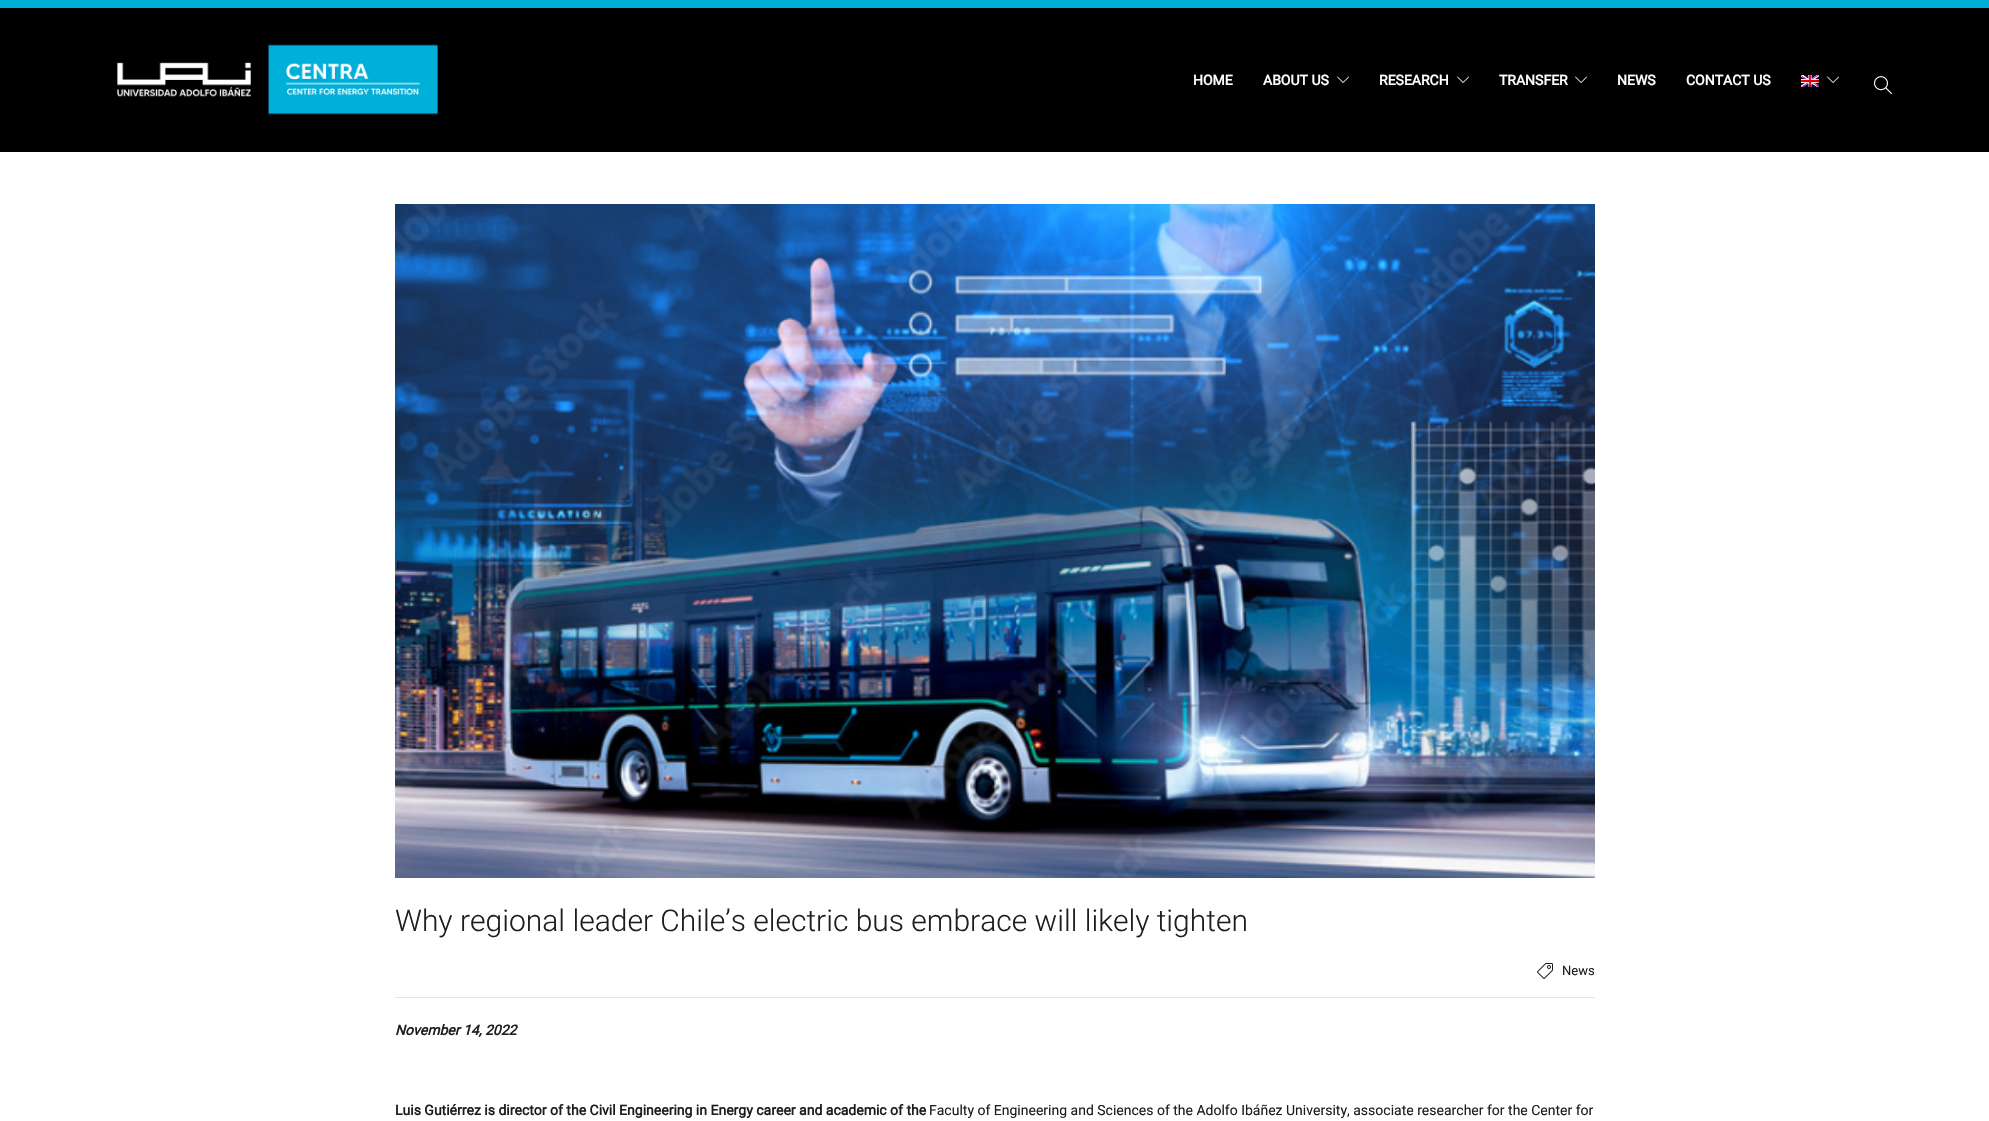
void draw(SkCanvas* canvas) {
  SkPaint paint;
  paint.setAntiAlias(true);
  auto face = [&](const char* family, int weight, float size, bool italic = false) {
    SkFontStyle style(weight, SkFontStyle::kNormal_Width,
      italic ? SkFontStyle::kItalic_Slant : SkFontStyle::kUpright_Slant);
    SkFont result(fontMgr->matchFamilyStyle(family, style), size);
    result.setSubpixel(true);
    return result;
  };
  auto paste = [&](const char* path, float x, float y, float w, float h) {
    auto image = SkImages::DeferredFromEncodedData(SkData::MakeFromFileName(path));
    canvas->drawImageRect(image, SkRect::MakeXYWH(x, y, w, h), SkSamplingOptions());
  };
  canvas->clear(0xffffffff);
  paint.setColor(0xff00afd8);
  canvas->drawRect(SkRect::MakeXYWH(0, 0, 1989, 8), paint);
  paint.setColor(0xff000000);
  canvas->drawRect(SkRect::MakeXYWH(0, 8, 1989, 144), paint);
  paste("img/1.png", 117, 44, 321, 71);
  paste("img/2.png", 1337, 76, 12, 7);
  paste("img/2.png", 1457, 76, 12, 7);
  paste("img/2.png", 1575, 76, 12, 7);
  paste("img/3.png", 1801, 75, 18, 12);
  paste("img/2.png", 1827, 76, 12, 7);
  paste("img/4.png", 1874, 76, 18, 19);
  paste("img/5.png", 395, 204, 1200, 674);
  paint.setColor(0xffe5e5e5);
  canvas->drawRect(SkRect::MakeXYWH(395, 997, 1200, 1), paint);
  paste("img/6.png", 1537, 963, 16, 16);
  auto f0 = face("Roboto", 700, 14);
  paint.setColor(0xffffffff);
  {
    const struct { const char* s; float x, y; } items[] = {
      {"HOME", 1193, 85},
      {"ABOUT US", 1263, 85},
      {"RESEARCH", 1379, 85},
      {"TRANSFER", 1499, 85},
      {"NEWS", 1617, 85},
      {"CONTACT US", 1686, 85},
    };
    for (auto [s, x, y] : items) {
      canvas->drawString(s, x, y, f0, paint);
    }
  }
  auto f1 = face("Roboto", 300, 30);
  paint.setColor(0xff1d1e20);
  canvas->drawString("Why regional leader Chile’s electric bus embrace will likely tighten", 395, 931, f1, paint);
  auto f2 = face("Roboto", 400, 13);
  canvas->drawString("News", 1562, 975, f2, paint);
  auto f3 = face("Roboto", 700, 14, true);
  canvas->drawString("November 14, 2022", 395, 1035, f3, paint);
  canvas->drawString("Luis Gutiérrez is director of the Civil Engineering in Energy career and academic of the", 395, 1115, f0, paint);
  auto f4 = face("Roboto", 400, 14);
  canvas->drawString("Faculty of Engineering and Sciences of the Adolfo Ibáñez University, associate researcher for the Center for", 929, 1115, f4, paint);
}
